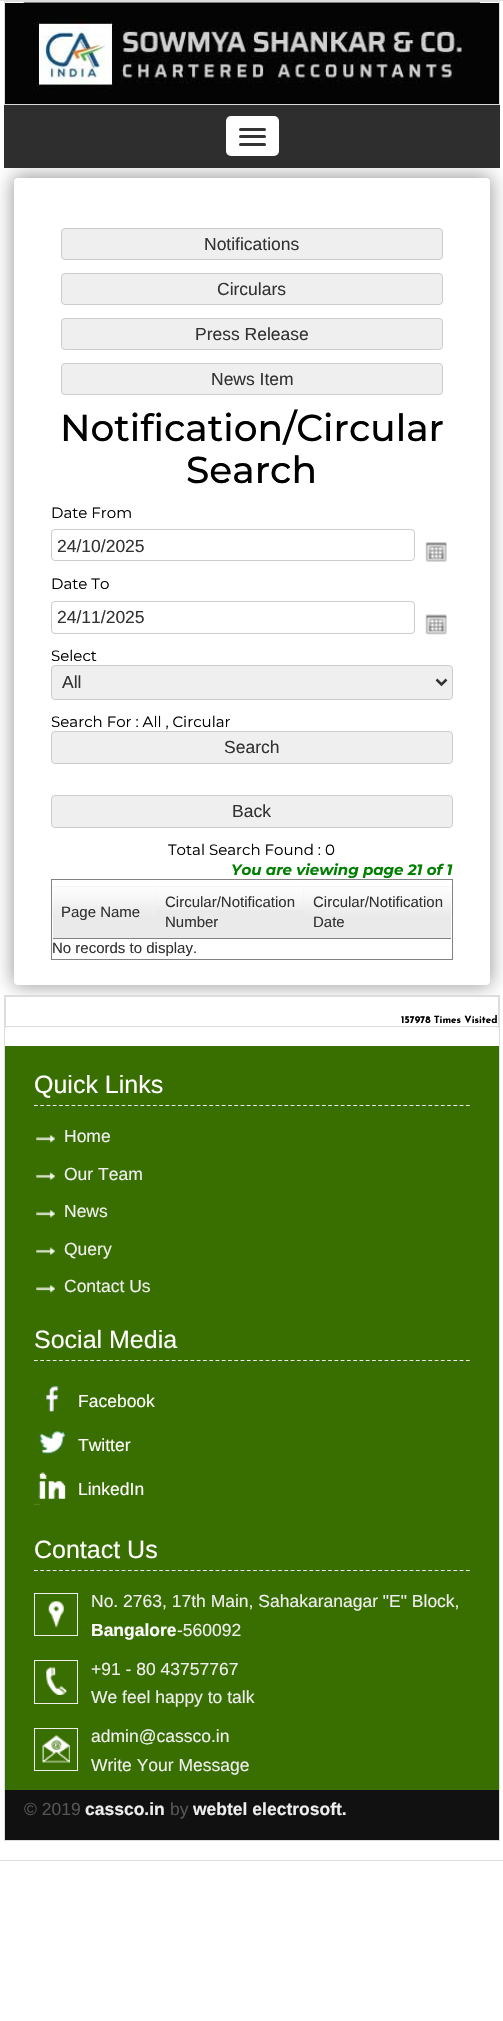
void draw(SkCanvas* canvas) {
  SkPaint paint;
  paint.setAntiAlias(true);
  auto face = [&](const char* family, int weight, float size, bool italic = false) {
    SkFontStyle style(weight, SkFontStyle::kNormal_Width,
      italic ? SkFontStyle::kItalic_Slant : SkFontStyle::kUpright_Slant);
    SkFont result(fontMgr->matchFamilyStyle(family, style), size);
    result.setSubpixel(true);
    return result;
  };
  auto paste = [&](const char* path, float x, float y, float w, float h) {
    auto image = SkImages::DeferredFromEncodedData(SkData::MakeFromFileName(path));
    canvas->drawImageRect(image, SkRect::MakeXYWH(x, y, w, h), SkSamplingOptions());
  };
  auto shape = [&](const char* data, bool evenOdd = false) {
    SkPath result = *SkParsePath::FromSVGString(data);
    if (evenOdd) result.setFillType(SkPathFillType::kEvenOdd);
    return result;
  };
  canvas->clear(0xffffffff);
  paint.setStroke(true);
  paint.setStrokeWidth(1);
  paint.setColor(0xffdddddd);
  canvas->drawRect(SkRect::MakeXYWH(-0.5f, 0.5f, 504, 1860), paint);
  paint.setStroke(false);
  {
    const struct { float x, y, w, h; SkColor color; } items[] = {
      {4, 1, 496, 1, 0xffdddddd},
      {499, 1, 1, 104, 0xffdddddd},
      {4, 104, 496, 1, 0xffdddddd},
      {4, 1, 1, 104, 0xffdddddd},
      {5, 3, 494, 101, 0xff040404},
    };
    for (auto [x, y, w, h, color] : items) {
      paint.setColor(color);
      canvas->drawRect(SkRect::MakeXYWH(x, y, w, h), paint);
    }
  }
  paste("img/1.png", 23, 2, 457, 90);
  {
    const struct { float x, y, w, h; SkColor color; } items[] = {
      {4, 995, 496, 1, 0xffdddddd},
      {499, 995, 1, 846, 0xffdddddd},
      {4, 1840, 496, 1, 0xffdddddd},
      {4, 995, 1, 846, 0xffdddddd},
      {5, 996, 494, 1, 0xffdddddd},
      {498, 996, 1, 32, 0xffdddddd},
      {5, 1026, 494, 1, 0xffdddddd},
      {5, 996, 1, 32, 0xffdddddd},
    };
    for (auto [x, y, w, h, color] : items) {
      paint.setColor(color);
      canvas->drawRect(SkRect::MakeXYWH(x, y, w, h), paint);
    }
  }
  canvas->save();
  canvas->clipRect(SkRect::MakeXYWH(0, 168, 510, 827));
  paint.setColor(0x66000000);
  paint.setMaskFilter(SkMaskFilter::MakeBlur(kNormal_SkBlurStyle, 9.5f));
  canvas->drawRoundRect(SkRect::MakeXYWH(13, 176, 478, 810), 5, 5, paint);
  paint.setMaskFilter(nullptr);
  canvas->restore();
  paint.setColor(0xff2f2e2e);
  canvas->drawRect(SkRect::MakeXYWH(4, 105, 496, 63), paint);
  paint.setColor(0xffffffff);
  canvas->drawRoundRect(SkRect::MakeXYWH(226, 116, 53, 40), 5, 5, paint);
  paint.setColor(0xff333333);
  canvas->drawRoundRect(SkRect::MakeXYWH(239, 128, 27, 3), 1.5f, 1.5f, paint);
  canvas->drawRoundRect(SkRect::MakeXYWH(239, 135, 27, 3), 1.5f, 1.5f, paint);
  canvas->drawRoundRect(SkRect::MakeXYWH(239, 143, 27, 3), 1.5f, 1.5f, paint);
  paint.setColor(0xffffffff);
  canvas->drawRoundRect(SkRect::MakeXYWH(14, 178, 476, 807), 4, 4, paint);
  paint.setColor(0xffefefef);
  canvas->drawRoundRect(SkRect::MakeXYWH(61.5f, 228.5f, 381, 31), 3.5f, 3.5f, paint);
  paint.setStroke(true);
  paint.setColor(0xffcccccc);
  canvas->drawRoundRect(SkRect::MakeXYWH(61.5f, 228.5f, 381, 31), 3.5f, 3.5f, paint);
  paint.setStroke(false);
  paint.setColor(0xffefefef);
  canvas->drawRoundRect(SkRect::MakeXYWH(61.5f, 273.5f, 381, 31), 3.5f, 3.5f, paint);
  paint.setStroke(true);
  paint.setColor(0xffcccccc);
  canvas->drawRoundRect(SkRect::MakeXYWH(61.5f, 273.5f, 381, 31), 3.5f, 3.5f, paint);
  paint.setStroke(false);
  paint.setColor(0xffefefef);
  canvas->drawRoundRect(SkRect::MakeXYWH(61.5f, 318.5f, 381, 31), 3.5f, 3.5f, paint);
  paint.setStroke(true);
  paint.setColor(0xffcccccc);
  canvas->drawRoundRect(SkRect::MakeXYWH(61.5f, 318.5f, 381, 31), 3.5f, 3.5f, paint);
  paint.setStroke(false);
  paint.setColor(0xffefefef);
  canvas->drawRoundRect(SkRect::MakeXYWH(61.5f, 363.5f, 381, 31), 3.5f, 3.5f, paint);
  paint.setStroke(true);
  paint.setColor(0xffcccccc);
  canvas->drawRoundRect(SkRect::MakeXYWH(61.5f, 363.5f, 381, 31), 3.5f, 3.5f, paint);
  canvas->drawRoundRect(SkRect::MakeXYWH(51.5f, 529.5f, 363, 31), 3.5f, 3.5f, paint);
  paste("img/2.png", 425, 542, 22, 20);
  canvas->drawRoundRect(SkRect::MakeXYWH(51.5f, 601.5f, 363, 32), 3.5f, 3.5f, paint);
  paste("img/3.png", 425, 614, 22, 21);
  paint.setStroke(false);
  paint.setColor(0xffefefef);
  canvas->drawRoundRect(SkRect::MakeXYWH(51.5f, 665.5f, 401, 34), 3.5f, 3.5f, paint);
  paint.setStroke(true);
  paint.setColor(0xffcccccc);
  canvas->drawRoundRect(SkRect::MakeXYWH(51.5f, 665.5f, 401, 34), 3.5f, 3.5f, paint);
  paint.setStrokeWidth(2.5f);
  paint.setColor(0xff333333);
  canvas->drawPath(shape("M436.5 679.5L441.5 684.5L446.5 679.5"), paint);
  paint.setStroke(false);
  paint.setColor(0xffefefef);
  canvas->drawRoundRect(SkRect::MakeXYWH(51.5f, 731.5f, 401, 32), 3.5f, 3.5f, paint);
  paint.setStroke(true);
  paint.setStrokeWidth(1);
  paint.setColor(0xffcccccc);
  canvas->drawRoundRect(SkRect::MakeXYWH(51.5f, 731.5f, 401, 32), 3.5f, 3.5f, paint);
  paint.setStroke(false);
  paint.setColor(0xffefefef);
  canvas->drawRoundRect(SkRect::MakeXYWH(51.5f, 795.5f, 401, 32), 3.5f, 3.5f, paint);
  paint.setStroke(true);
  paint.setColor(0xffcccccc);
  canvas->drawRoundRect(SkRect::MakeXYWH(51.5f, 795.5f, 401, 32), 3.5f, 3.5f, paint);
  paint.setColor(0xff828282);
  canvas->drawRect(SkRect::MakeXYWH(51.5f, 879.5f, 401, 80), paint);
  paint.setStroke(false);
  paint.setColor(0xffeaeaea);
  canvas->drawRect(SkRect::MakeXYWH(53, 886, 398, 52), paint);
  paste("img/4.png", 52, 886, 104, 32);
  paint.setColor(0xff828282);
  canvas->drawRect(SkRect::MakeXYWH(53, 938, 398, 1), paint);
  paste("img/5.png", 156, 886, 148, 24);
  paste("img/6.png", 304, 886, 148, 31);
  paint.setColor(0xff396e00);
  canvas->drawRect(SkRect::MakeXYWH(5, 1046, 494, 744), paint);
  paint.setStroke(true);
  paint.setStrokeWidth(1.2f);
  paint.setColor(0xffeeeeee);
  paint.setPathEffect(SkDashPathEffect::Make({{3.75f, 2.51f}}, 0));
  canvas->drawPath(shape("M34 1105.5H470"), paint);
  paint.setPathEffect(nullptr);
  paste("img/7.png", 36, 1135, 19, 8);
  paste("img/8.png", 36, 1172, 19, 8);
  paste("img/7.png", 36, 1210, 19, 8);
  paste("img/9.png", 36, 1247, 19, 8);
  paste("img/7.png", 36, 1285, 19, 8);
  paint.setPathEffect(SkDashPathEffect::Make({{3.75f, 2.51f}}, 0));
  canvas->drawPath(shape("M34 1360.5H470"), paint);
  paint.setPathEffect(nullptr);
  paste("img/10.png", 46, 1386, 13, 26);
  paste("img/11.png", 39, 1431, 27, 23);
  paste("img/12.png", 33, 1472, 33, 33);
  paint.setPathEffect(SkDashPathEffect::Make({{3.75f, 2.51f}}, 0));
  canvas->drawPath(shape("M34 1570.5H470"), paint);
  paint.setPathEffect(nullptr);
  paint.setStrokeWidth(1);
  canvas->drawRect(SkRect::MakeXYWH(34.5f, 1593.5f, 43, 42), paint);
  paste("img/13.png", 48, 1601, 16, 27);
  canvas->drawRect(SkRect::MakeXYWH(34.5f, 1660.5f, 43, 43), paint);
  paste("img/14.png", 46, 1667, 21, 28);
  canvas->drawRect(SkRect::MakeXYWH(34.5f, 1728.5f, 43, 42), paint);
  paste("img/15.png", 42, 1735, 28, 28);
  paint.setStroke(false);
  paint.setColor(0xff111111);
  canvas->drawRect(SkRect::MakeXYWH(5, 1790, 494, 50), paint);
  auto f0 = face("Liberation Sans", 400, 17.5f);
  paint.setColor(0xff333333);
  {
    const struct { const char* s; float x, y; } items[] = {
      {"Notifications", 204, 250},
      {"Circulars", 217, 295},
      {"Press Release", 195, 340},
      {"News Item", 211, 385},
    };
    for (auto [s, x, y] : items) {
      canvas->drawString(s, x, y, f0, paint);
    }
  }
  auto f1 = face("Montserrat", 500, 37.5f);
  paint.setColor(0xff000000);
  canvas->drawString("Notification/Circular", 60, 441, f1, paint);
  canvas->drawString("Search", 186, 483, f1, paint);
  auto f2 = face("Montserrat", 400, 15);
  canvas->drawString("Date From", 51, 518, f2, paint);
  paint.setColor(0xff333333);
  canvas->drawString("24/10/2025", 57, 552, f0, paint);
  paint.setColor(0xff000000);
  canvas->drawString("Date To", 51, 589, f2, paint);
  paint.setColor(0xff333333);
  canvas->drawString("24/11/2025", 57, 623, f0, paint);
  paint.setColor(0xff000000);
  canvas->drawString("Select", 51, 661, f2, paint);
  paint.setColor(0xff333333);
  canvas->drawString("All", 62, 688, f0, paint);
  paint.setColor(0xff000000);
  canvas->drawString("Search For : All , Circular", 51, 727, f2, paint);
  paint.setColor(0xff333333);
  canvas->drawString("Search", 224, 753, f0, paint);
  canvas->drawString("Back", 232, 817, f0, paint);
  paint.setColor(0xff000000);
  canvas->drawString("Total Search Found : 0", 168, 855, f2, paint);
  auto f3 = face("Montserrat", 700, 15, true);
  paint.setColor(0xff008000);
  canvas->drawString("You are viewing page 21 of 1", 231, 875, f3, paint);
  auto f4 = face("Liberation Sans", 400, 15);
  paint.setColor(0xff333333);
  {
    const struct { const char* s; float x, y; } items[] = {
      {"Page Name", 61, 917},
      {"Circular/Notification", 165, 907},
      {"Number", 165, 927},
      {"Circular/Notification", 313, 907},
      {"Date", 313, 927},
      {"No records to display.", 52, 953},
    };
    for (auto [s, x, y] : items) {
      canvas->drawString(s, x, y, f4, paint);
    }
  }
  auto f5 = face("Josefin Sans", 700, 10);
  paint.setColor(0xff000000);
  canvas->drawString("157978 Times Visited", 401, 1023, f5, paint);
  auto f6 = face("Liberation Sans", 400, 25);
  paint.setColor(0xffffffff);
  canvas->drawString("Quick Links", 34, 1093, f6, paint);
  paint.setColor(0xffeeeeee);
  {
    const struct { const char* s; float x, y; } items[] = {
      {"Home", 64, 1142},
      {"Our Team", 64, 1180},
      {"News", 64, 1217},
      {"Query", 64, 1255},
      {"Contact Us", 64, 1292},
    };
    for (auto [s, x, y] : items) {
      canvas->drawString(s, x, y, f0, paint);
    }
  }
  paint.setColor(0xffffffff);
  canvas->drawString("Social Media", 34, 1348, f6, paint);
  {
    const struct { const char* s; float x, y; } items[] = {
      {"Facebook", 78, 1407},
      {"Twitter", 78, 1451},
      {"LinkedIn", 78, 1495},
    };
    for (auto [s, x, y] : items) {
      canvas->drawString(s, x, y, f0, paint);
    }
  }
  canvas->drawString("Contact Us", 34, 1558, f6, paint);
  paint.setColor(0xffeeeeee);
  canvas->drawString("No. 2763, 17th Main, Sahakaranagar \"E\" Block,", 91, 1607, f0, paint);
  auto f7 = face("Liberation Sans", 700, 17.5f);
  paint.setColor(0xffffffff);
  canvas->drawString("Bangalore", 91, 1636, f7, paint);
  paint.setColor(0xffeeeeee);
  {
    const struct { const char* s; float x, y; } items[] = {
      {"-560092", 177, 1636},
      {"+91 - 80 43757767", 91, 1675},
      {"We feel happy to talk", 91, 1703},
      {"admin@cassco.in", 91, 1742},
      {"Write Your Message", 91, 1771},
    };
    for (auto [s, x, y] : items) {
      canvas->drawString(s, x, y, f0, paint);
    }
  }
  paint.setColor(0xff555555);
  canvas->drawString("© 2019", 24, 1815, f0, paint);
  paint.setColor(0xffeeeeee);
  canvas->drawString("cassco.in", 85, 1815, f7, paint);
  paint.setColor(0xff555555);
  canvas->drawString("by", 170, 1815, f0, paint);
  paint.setColor(0xffeeeeee);
  canvas->drawString("webtel electrosoft.", 193, 1815, f7, paint);
}
